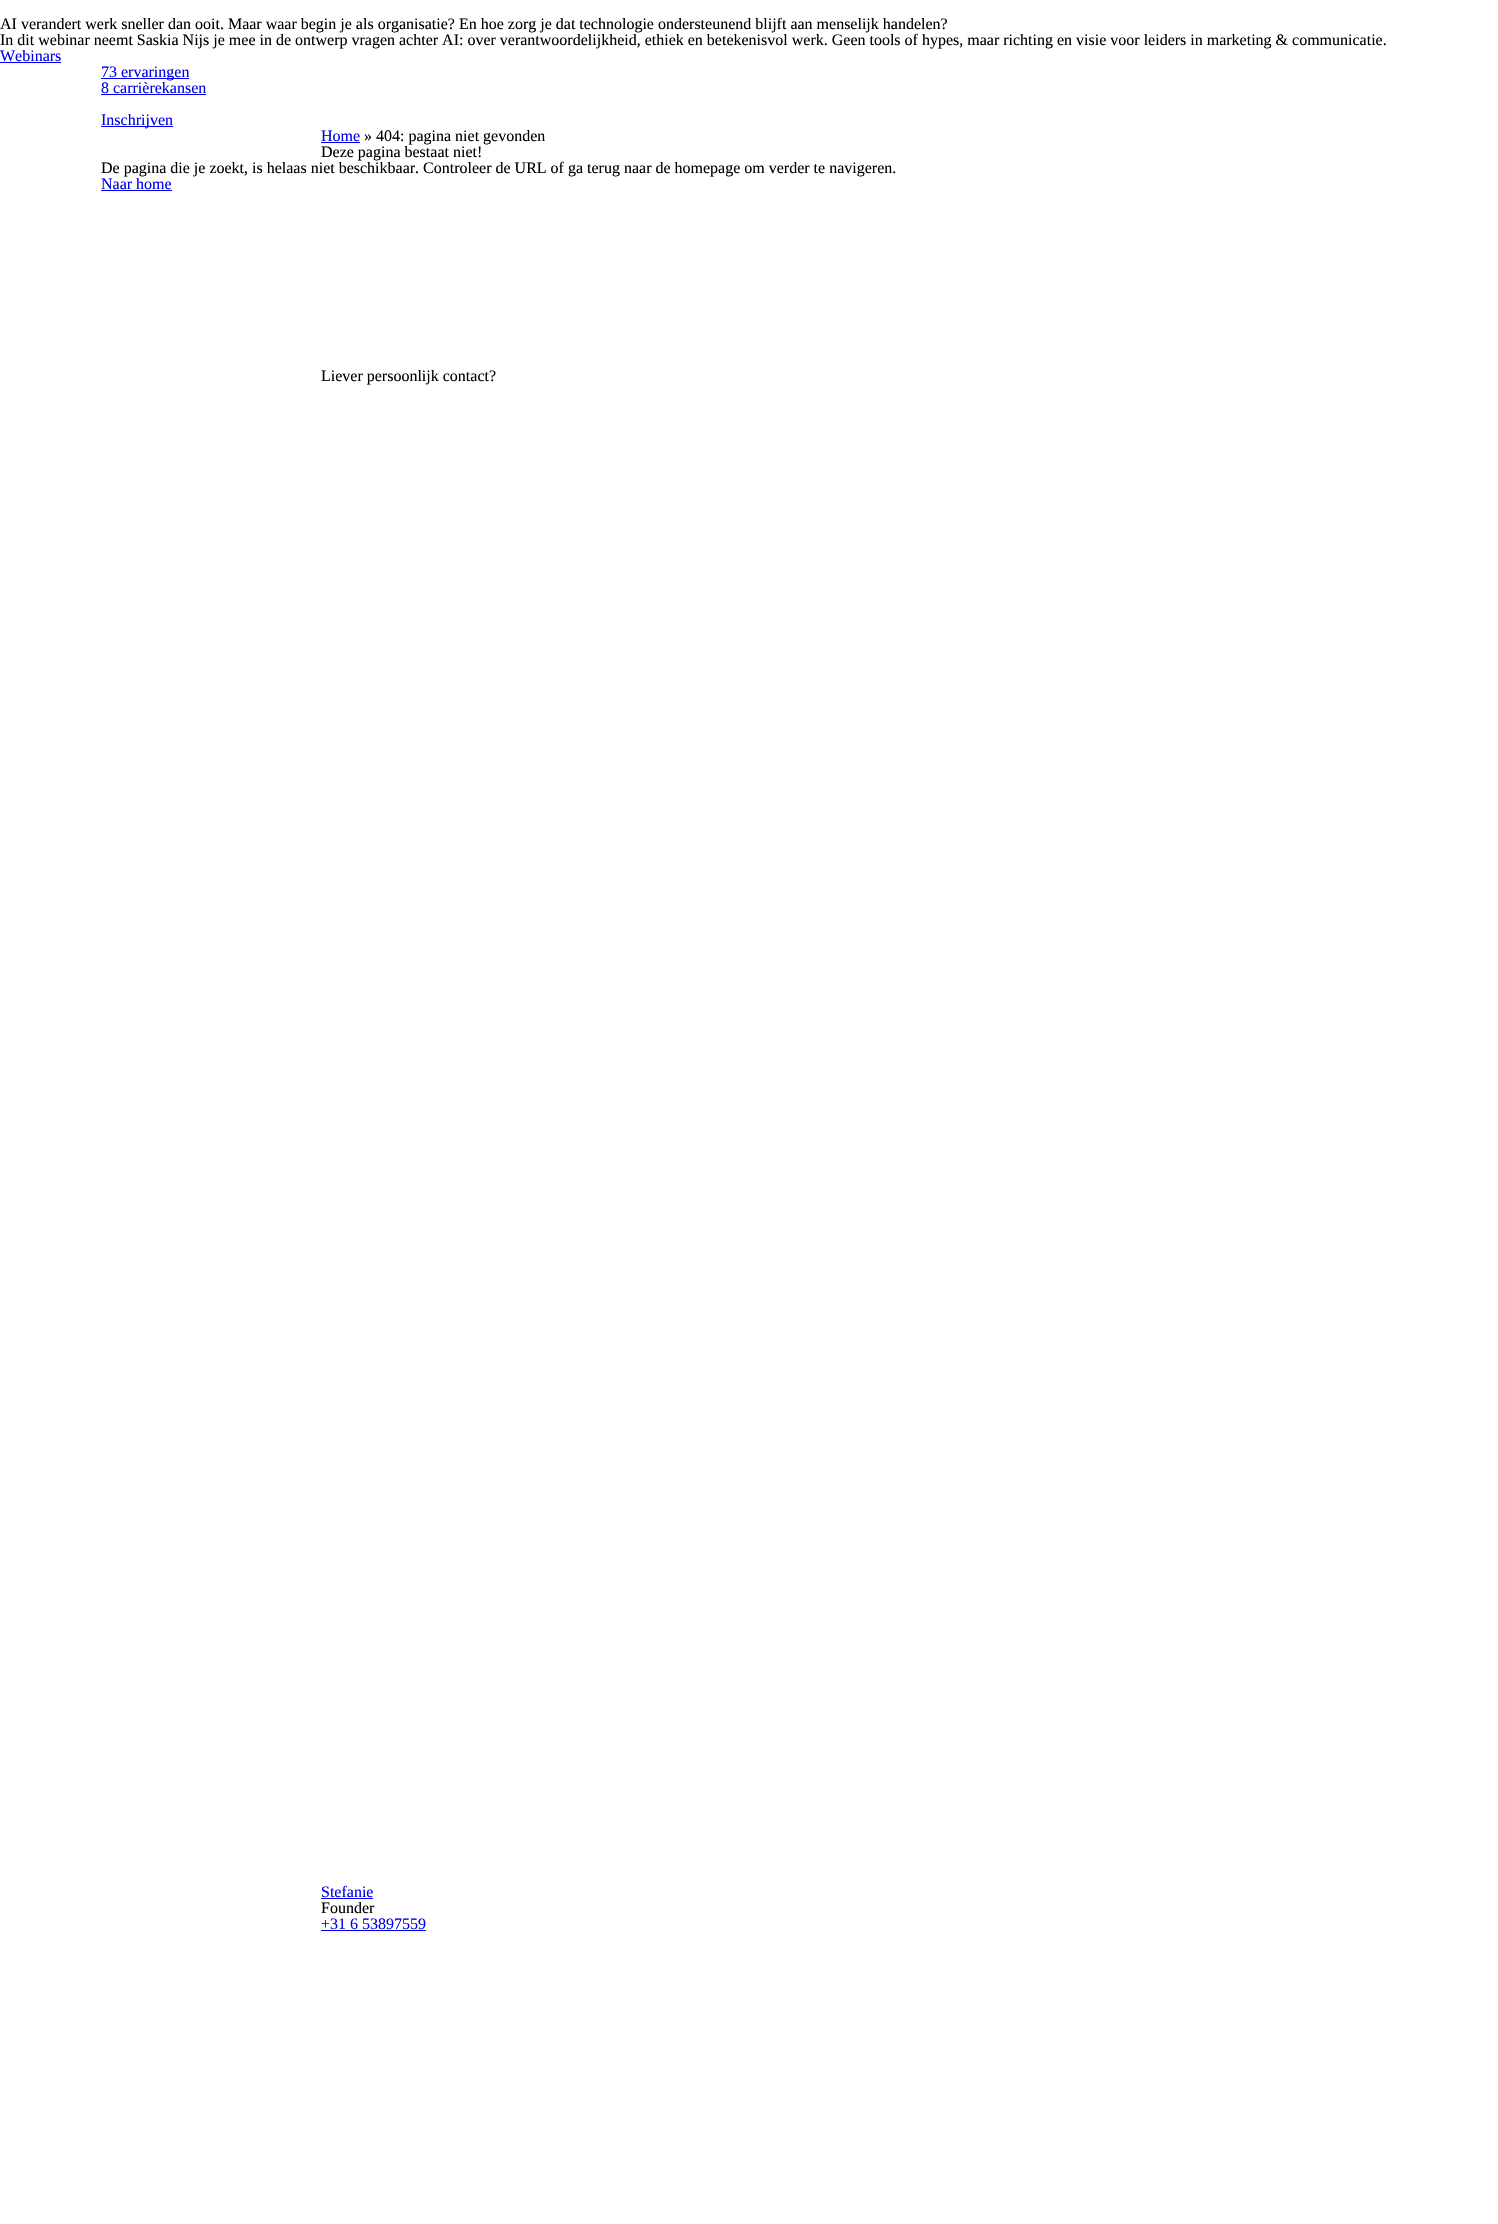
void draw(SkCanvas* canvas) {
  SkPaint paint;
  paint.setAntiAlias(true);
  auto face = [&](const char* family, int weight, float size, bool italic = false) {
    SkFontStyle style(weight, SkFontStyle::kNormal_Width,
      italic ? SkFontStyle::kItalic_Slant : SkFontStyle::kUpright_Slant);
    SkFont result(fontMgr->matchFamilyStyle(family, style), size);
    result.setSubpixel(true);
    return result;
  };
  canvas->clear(0xffffffff);
  {
    const struct { float x, y, w, h; SkColor color; } items[] = {
      {0, 62, 61, 1, 0xff0000ee},
      {101, 78, 88, 1, 0xff0000ee},
      {101, 94, 105, 1, 0xff0000ee},
      {101, 126, 72, 1, 0xff0000ee},
      {321, 142, 39, 1, 0xff0000ee},
      {101, 190, 71, 1, 0xff0000ee},
      {321, 1898, 52, 1, 0xff0000ee},
      {321, 1930, 105, 1, 0xff0000ee},
    };
    for (auto [x, y, w, h, color] : items) {
      paint.setColor(color);
      canvas->drawRect(SkRect::MakeXYWH(x, y, w, h), paint);
    }
  }
  auto f0 = face("Liberation Serif", 400, 16);
  paint.setColor(0xff000000);
  canvas->drawString("AI verandert werk sneller dan ooit. Maar waar begin je als organisatie? En hoe zorg je dat technologie ondersteunend blijft aan menselijk handelen?", 0, 29, f0, paint);
  canvas->drawString("In dit webinar neemt Saskia Nijs je mee in de ontwerp vragen achter AI: over verantwoordelijkheid, ethiek en betekenisvol werk. Geen tools of hypes, maar richting en visie voor leiders in marketing & communicatie.", 0, 45, f0, paint);
  paint.setColor(0xff0000ee);
  {
    const struct { const char* s; float x, y; } items[] = {
      {"Webinars", 0, 61},
      {"73 ervaringen", 101, 77},
      {"8 carrièrekansen", 101, 93},
      {"Inschrijven", 101, 125},
      {"Home", 321, 141},
    };
    for (auto [s, x, y] : items) {
      canvas->drawString(s, x, y, f0, paint);
    }
  }
  paint.setColor(0xff000000);
  {
    const struct { const char* s; float x, y; } items[] = {
      {"» 404: pagina niet gevonden", 364, 141},
      {"Deze pagina bestaat niet!", 321, 157},
      {"De pagina die je zoekt, is helaas niet beschikbaar. Controleer de URL of ga terug naar de homepage om verder te navigeren.", 101, 173},
    };
    for (auto [s, x, y] : items) {
      canvas->drawString(s, x, y, f0, paint);
    }
  }
  paint.setColor(0xff0000ee);
  canvas->drawString("Naar home", 101, 189, f0, paint);
  paint.setColor(0xff000000);
  canvas->drawString("Liever persoonlijk contact?", 321, 381, f0, paint);
  paint.setColor(0xff0000ee);
  canvas->drawString("Stefanie", 321, 1897, f0, paint);
  paint.setColor(0xff000000);
  canvas->drawString("Founder", 321, 1913, f0, paint);
  paint.setColor(0xff0000ee);
  canvas->drawString("+31 6 53897559", 321, 1929, f0, paint);
}
